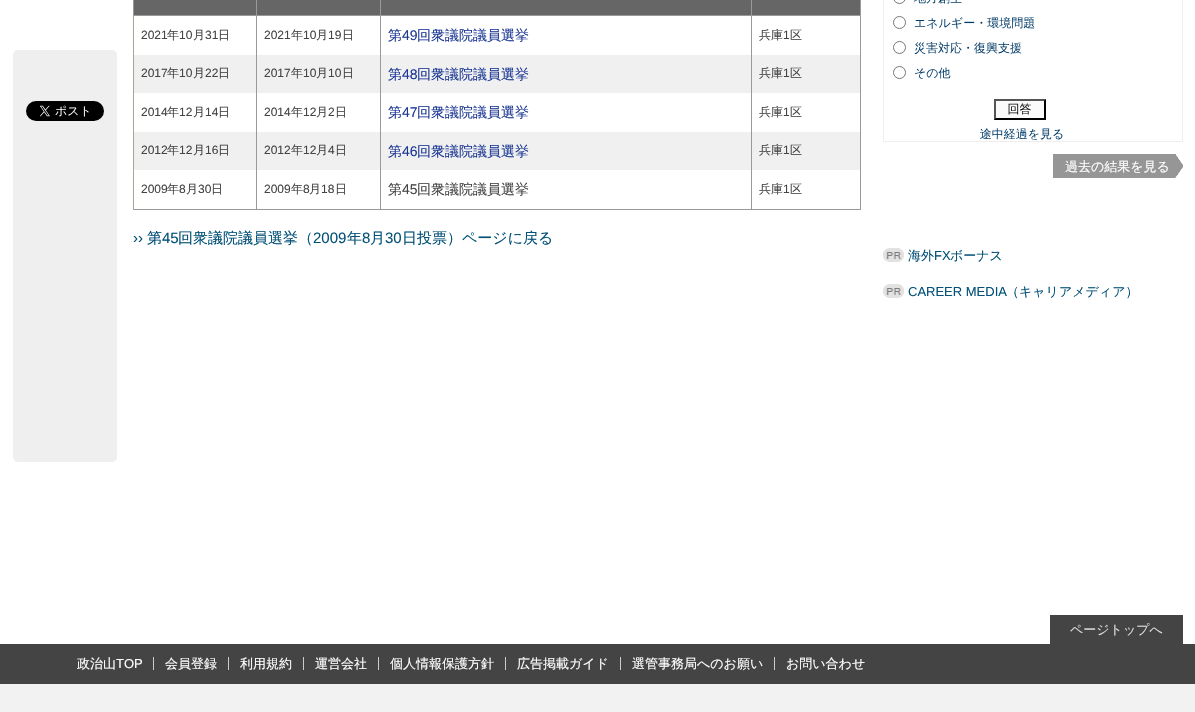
void draw(SkCanvas* canvas) {
  SkPaint paint;
  paint.setAntiAlias(true);
  auto face = [&](const char* family, int weight, float size, bool italic = false) {
    SkFontStyle style(weight, SkFontStyle::kNormal_Width,
      italic ? SkFontStyle::kItalic_Slant : SkFontStyle::kUpright_Slant);
    SkFont result(fontMgr->matchFamilyStyle(family, style), size);
    result.setSubpixel(true);
    return result;
  };
  auto paste = [&](const char* path, float x, float y, float w, float h) {
    auto image = SkImages::DeferredFromEncodedData(SkData::MakeFromFileName(path));
    canvas->drawImageRect(image, SkRect::MakeXYWH(x, y, w, h), SkSamplingOptions());
  };
  canvas->clear(0xffffffff);
  paint.setColor(0xffefefef);
  canvas->drawRoundRect(SkRect::MakeXYWH(13, 50, 104, 412), 5, 5, paint);
  paste("img/1.png", 26, 101, 78, 20);
  {
    const struct { float x, y, w, h; SkColor color; } items[] = {
      {133, 209, 728, 1, 0xff999999},
      {134, 0, 122, 15, 0xff666666},
      {134, 55, 726, 38, 0xfff0f0f0},
      {134, 132, 726, 38, 0xfff0f0f0},
      {751, 15, 1, 195, 0xff999999},
      {860, 0, 1, 210, 0xff999999},
      {751, 15, 110, 1, 0xff999999},
      {751, 0, 1, 16, 0xff999999},
      {380, 15, 1, 195, 0xff999999},
      {380, 15, 372, 1, 0xff999999},
      {380, 0, 1, 16, 0xff999999},
      {256, 15, 1, 195, 0xff999999},
      {256, 15, 125, 1, 0xff999999},
      {256, 0, 1, 16, 0xff999999},
      {133, 15, 1, 195, 0xffada296},
      {133, 15, 124, 1, 0xff999999},
      {133, 0, 1, 16, 0xff999999},
      {257, 0, 123, 15, 0xff666666},
      {381, 0, 370, 15, 0xff666666},
      {752, 0, 108, 15, 0xff666666},
    };
    for (auto [x, y, w, h, color] : items) {
      paint.setColor(color);
      canvas->drawRect(SkRect::MakeXYWH(x, y, w, h), paint);
    }
  }
  paint.setStroke(true);
  paint.setStrokeWidth(1);
  paint.setColor(0xffeeeeee);
  canvas->drawRect(SkRect::MakeXYWH(883.5f, -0.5f, 299, 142), paint);
  paste("img/2.png", 893, 0, 170, 140);
  paste("img/3.png", 1053, 154, 130, 24);
  paste("img/4.png", 883, 248, 21, 14);
  paste("img/4.png", 883, 284, 21, 14);
  paint.setStroke(false);
  {
    const struct { float x, y, w, h; SkColor color; } items[] = {
      {1050, 615, 133, 29, 0xff444444},
      {0, 644, 1195, 40, 0xff444444},
      {153, 657, 1, 13, 0xffcccccc},
      {228, 657, 1, 13, 0xffcccccc},
      {303, 657, 1, 13, 0xffcccccc},
      {378, 657, 1, 13, 0xffcccccc},
      {505, 657, 1, 13, 0xffcccccc},
      {620, 657, 1, 13, 0xffcccccc},
      {774, 657, 1, 13, 0xffcccccc},
      {0, 684, 1195, 28, 0xfff2f2f2},
    };
    for (auto [x, y, w, h, color] : items) {
      paint.setColor(color);
      canvas->drawRect(SkRect::MakeXYWH(x, y, w, h), paint);
    }
  }
  auto f0 = face("Liberation Sans", 400, 12);
  paint.setColor(0xff444444);
  canvas->drawString("2021", 141, 39, f0, paint);
  auto f1 = face("WenQuanYi Zen Hei", 500, 12);
  canvas->drawString("年", 167, 39, f1, paint);
  canvas->drawString("10", 179, 39, f0, paint);
  canvas->drawString("月", 193, 39, f1, paint);
  canvas->drawString("31", 205, 39, f0, paint);
  canvas->drawString("日", 218, 39, f1, paint);
  canvas->drawString("2021", 264, 39, f0, paint);
  canvas->drawString("年", 291, 39, f1, paint);
  canvas->drawString("10", 303, 39, f0, paint);
  canvas->drawString("月", 316, 39, f1, paint);
  canvas->drawString("19", 328, 39, f0, paint);
  canvas->drawString("日", 342, 39, f1, paint);
  auto f2 = face("WenQuanYi Zen Hei", 500, 14);
  paint.setColor(0xff1d3994);
  canvas->drawString("第", 388, 40, f2, paint);
  auto f3 = face("Liberation Sans", 400, 14);
  canvas->drawString("49", 402, 40, f3, paint);
  canvas->drawString("回衆議院議員選挙", 417, 40, f2, paint);
  paint.setColor(0xff444444);
  canvas->drawString("兵庫", 759, 39, f1, paint);
  canvas->drawString("1", 783, 39, f0, paint);
  canvas->drawString("区", 790, 39, f1, paint);
  canvas->drawString("2017", 141, 77, f0, paint);
  canvas->drawString("年", 167, 77, f1, paint);
  canvas->drawString("10", 179, 77, f0, paint);
  canvas->drawString("月", 193, 77, f1, paint);
  canvas->drawString("22", 205, 77, f0, paint);
  canvas->drawString("日", 218, 77, f1, paint);
  canvas->drawString("2017", 264, 77, f0, paint);
  canvas->drawString("年", 291, 77, f1, paint);
  canvas->drawString("10", 303, 77, f0, paint);
  canvas->drawString("月", 316, 77, f1, paint);
  canvas->drawString("10", 328, 77, f0, paint);
  canvas->drawString("日", 342, 77, f1, paint);
  paint.setColor(0xff1d3994);
  canvas->drawString("第", 388, 79, f2, paint);
  canvas->drawString("48", 402, 79, f3, paint);
  canvas->drawString("回衆議院議員選挙", 417, 79, f2, paint);
  paint.setColor(0xff444444);
  canvas->drawString("兵庫", 759, 77, f1, paint);
  canvas->drawString("1", 783, 77, f0, paint);
  canvas->drawString("区", 790, 77, f1, paint);
  canvas->drawString("2014", 141, 116, f0, paint);
  canvas->drawString("年", 167, 116, f1, paint);
  canvas->drawString("12", 179, 116, f0, paint);
  canvas->drawString("月", 193, 116, f1, paint);
  canvas->drawString("14", 205, 116, f0, paint);
  canvas->drawString("日", 218, 116, f1, paint);
  canvas->drawString("2014", 264, 116, f0, paint);
  canvas->drawString("年", 291, 116, f1, paint);
  canvas->drawString("12", 303, 116, f0, paint);
  canvas->drawString("月", 316, 116, f1, paint);
  canvas->drawString("2", 328, 116, f0, paint);
  canvas->drawString("日", 335, 116, f1, paint);
  paint.setColor(0xff1d3994);
  canvas->drawString("第", 388, 117, f2, paint);
  canvas->drawString("47", 402, 117, f3, paint);
  canvas->drawString("回衆議院議員選挙", 417, 117, f2, paint);
  paint.setColor(0xff444444);
  canvas->drawString("兵庫", 759, 116, f1, paint);
  canvas->drawString("1", 783, 116, f0, paint);
  canvas->drawString("区", 790, 116, f1, paint);
  canvas->drawString("2012", 141, 154, f0, paint);
  canvas->drawString("年", 167, 154, f1, paint);
  canvas->drawString("12", 179, 154, f0, paint);
  canvas->drawString("月", 193, 154, f1, paint);
  canvas->drawString("16", 205, 154, f0, paint);
  canvas->drawString("日", 218, 154, f1, paint);
  canvas->drawString("2012", 264, 154, f0, paint);
  canvas->drawString("年", 291, 154, f1, paint);
  canvas->drawString("12", 303, 154, f0, paint);
  canvas->drawString("月", 316, 154, f1, paint);
  canvas->drawString("4", 328, 154, f0, paint);
  canvas->drawString("日", 335, 154, f1, paint);
  paint.setColor(0xff1d3994);
  canvas->drawString("第", 388, 156, f2, paint);
  canvas->drawString("46", 402, 156, f3, paint);
  canvas->drawString("回衆議院議員選挙", 417, 156, f2, paint);
  paint.setColor(0xff444444);
  canvas->drawString("兵庫", 759, 154, f1, paint);
  canvas->drawString("1", 783, 154, f0, paint);
  canvas->drawString("区", 790, 154, f1, paint);
  canvas->drawString("2009", 141, 193, f0, paint);
  canvas->drawString("年", 167, 193, f1, paint);
  canvas->drawString("8", 179, 193, f0, paint);
  canvas->drawString("月", 186, 193, f1, paint);
  canvas->drawString("30", 198, 193, f0, paint);
  canvas->drawString("日", 211, 193, f1, paint);
  canvas->drawString("2009", 264, 193, f0, paint);
  canvas->drawString("年", 291, 193, f1, paint);
  canvas->drawString("8", 303, 193, f0, paint);
  canvas->drawString("月", 309, 193, f1, paint);
  canvas->drawString("18", 321, 193, f0, paint);
  canvas->drawString("日", 335, 193, f1, paint);
  canvas->drawString("第", 388, 194, f2, paint);
  canvas->drawString("45", 402, 194, f3, paint);
  canvas->drawString("回衆議院議員選挙", 417, 194, f2, paint);
  canvas->drawString("兵庫", 759, 193, f1, paint);
  canvas->drawString("1", 783, 193, f0, paint);
  canvas->drawString("区", 790, 193, f1, paint);
  auto f4 = face("Liberation Sans", 400, 15);
  paint.setColor(0xff035178);
  canvas->drawString("››", 133, 243, f4, paint);
  auto f5 = face("WenQuanYi Zen Hei", 500, 15);
  canvas->drawString("第", 147, 243, f5, paint);
  canvas->drawString("45", 162, 243, f4, paint);
  canvas->drawString("回衆議院議員選挙（", 178, 243, f5, paint);
  canvas->drawString("2009", 313, 243, f4, paint);
  canvas->drawString("年", 347, 243, f5, paint);
  canvas->drawString("8", 362, 243, f4, paint);
  canvas->drawString("月", 370, 243, f5, paint);
  canvas->drawString("30", 385, 243, f4, paint);
  canvas->drawString("日投票）ページに戻る", 402, 243, f5, paint);
  auto f6 = face("WenQuanYi Zen Hei", 500, 13);
  paint.setColor(0xffffffff);
  canvas->drawString("過去の結果を見る", 1065, 171, f6, paint);
  paint.setColor(0xff035178);
  canvas->drawString("海外", 908, 260, f6, paint);
  auto f7 = face("Liberation Sans", 400, 13);
  canvas->drawString("FX", 934, 260, f7, paint);
  canvas->drawString("ボーナス", 950, 260, f6, paint);
  canvas->drawString("CAREER MEDIA", 908, 296, f7, paint);
  canvas->drawString("（キャリアメディア）", 1006, 296, f6, paint);
  paint.setColor(0xffdddddd);
  canvas->drawString("ページトップへ", 1070, 634, f6, paint);
  paint.setColor(0xffffffff);
  canvas->drawString("政治山", 77, 668, f6, paint);
  canvas->drawString("TOP", 116, 668, f7, paint);
  {
    const struct { const char* s; float x, y; } items[] = {
      {"会員登録", 165, 668},
      {"利用規約", 240, 668},
      {"運営会社", 315, 668},
      {"個人情報保護方針", 390, 668},
      {"広告掲載ガイド", 517, 668},
      {"選管事務局へのお願い", 632, 668},
      {"お問い合わせ", 786, 668},
    };
    for (auto [s, x, y] : items) {
      canvas->drawString(s, x, y, f6, paint);
    }
  }
}
